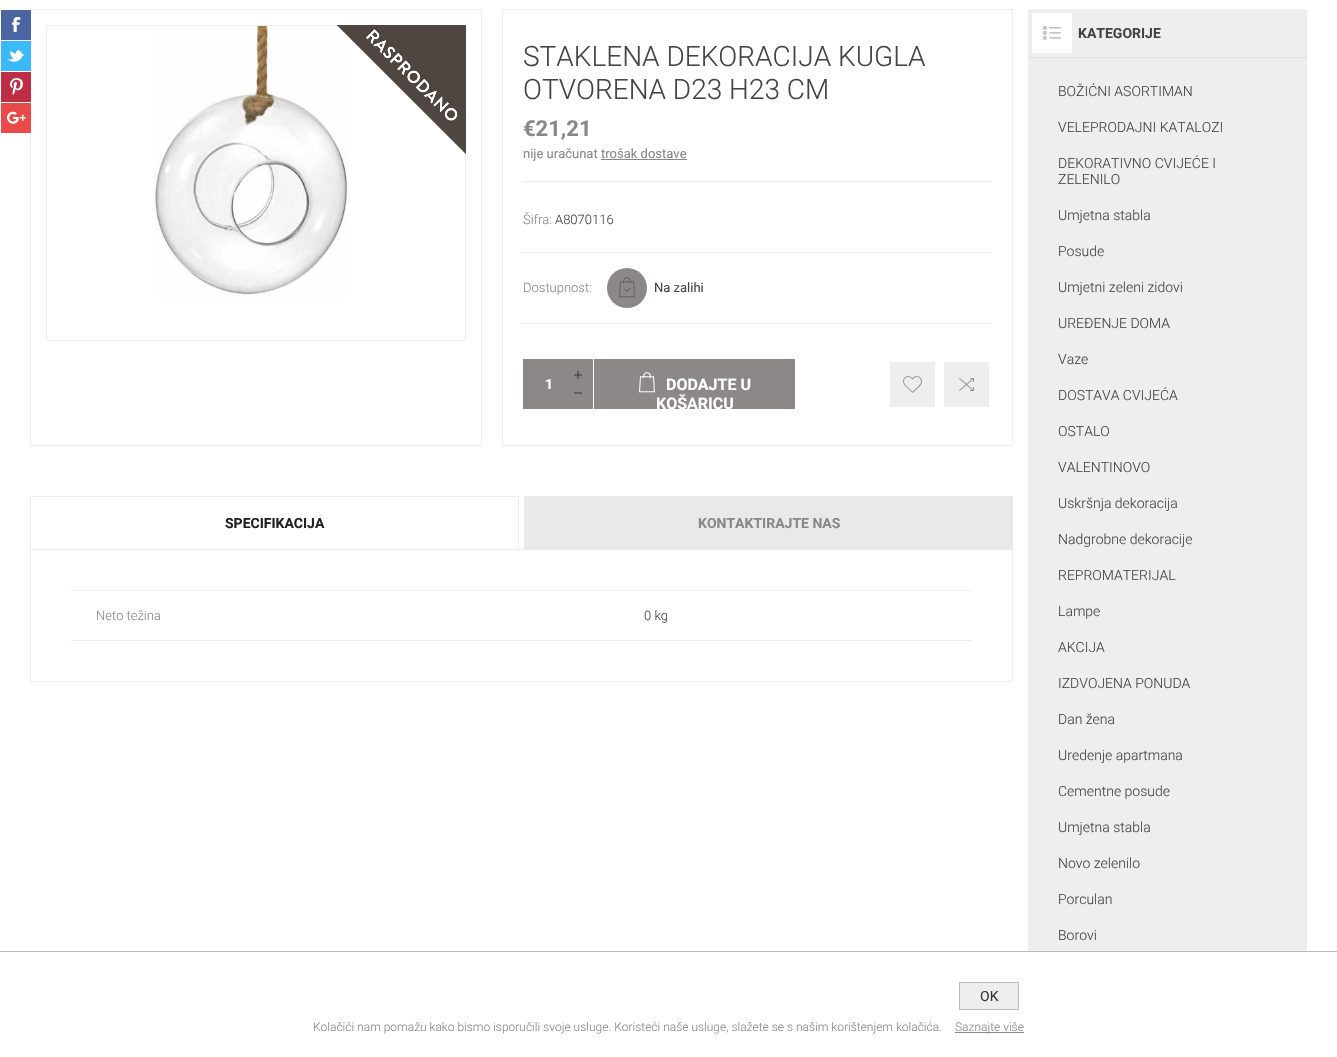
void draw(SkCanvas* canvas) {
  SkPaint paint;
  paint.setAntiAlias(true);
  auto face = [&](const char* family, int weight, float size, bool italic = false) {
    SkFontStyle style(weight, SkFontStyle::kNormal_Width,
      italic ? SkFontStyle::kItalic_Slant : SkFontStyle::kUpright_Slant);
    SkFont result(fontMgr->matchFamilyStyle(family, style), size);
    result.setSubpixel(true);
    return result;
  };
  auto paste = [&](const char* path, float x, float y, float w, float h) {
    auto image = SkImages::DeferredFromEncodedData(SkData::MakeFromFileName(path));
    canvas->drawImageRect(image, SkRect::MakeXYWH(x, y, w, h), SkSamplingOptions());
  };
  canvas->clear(0xffffffff);
  paint.setStroke(true);
  paint.setStrokeWidth(1);
  paint.setColor(0xffeeeeee);
  canvas->drawRect(SkRect::MakeXYWH(30.5f, 9.5f, 451, 436), paint);
  paint.setStroke(false);
  paint.setColor(0xff4a65a2);
  canvas->drawRect(SkRect::MakeXYWH(1, 10, 30, 30), paint);
  paste("img/1.png", 12, 16, 9, 16);
  paint.setColor(0xff3abafd);
  canvas->drawRect(SkRect::MakeXYWH(1, 41, 30, 30), paint);
  paste("img/2.png", 7, 49, 17, 13);
  paint.setColor(0xffbd2d45);
  canvas->drawRect(SkRect::MakeXYWH(1, 72, 30, 30), paint);
  paste("img/3.png", 10, 78, 13, 17);
  paint.setColor(0xffe94949);
  canvas->drawRect(SkRect::MakeXYWH(1, 103, 30, 30), paint);
  paste("img/4.png", 7, 111, 19, 13);
  paint.setStroke(true);
  paint.setColor(0xffeeeeee);
  canvas->drawRect(SkRect::MakeXYWH(46.5f, 25.5f, 419, 315), paint);
  paste("img/5.png", 154, 26, 196, 272);
  paste("img/6.png", 337, 25, 129, 129);
  canvas->drawRect(SkRect::MakeXYWH(502.5f, 9.5f, 510, 436), paint);
  paint.setStroke(false);
  {
    const struct { float x, y, w, h; SkColor color; } items[] = {
      {523, 181, 469, 1, 0xffeeeeee},
      {601, 159, 86, 1, 0xff888888},
      {523, 252, 469, 1, 0xffeeeeee},
      {523, 323, 469, 1, 0xffeeeeee},
    };
    for (auto [x, y, w, h, color] : items) {
      paint.setColor(color);
      canvas->drawRect(SkRect::MakeXYWH(x, y, w, h), paint);
    }
  }
  paint.setColor(0xff8d8888);
  canvas->drawCircle(627, 288, 20, paint);
  paste("img/7.png", 619, 277, 16, 21);
  {
    const struct { float x, y, w, h; SkColor color; } items[] = {
      {523, 359, 40, 50, 0xff8d8888},
      {563, 359, 30, 50, 0xff8d8888},
      {577, 371, 2, 8, 0xff635f5f},
      {574, 374, 8, 2, 0xff635f5f},
      {577, 374, 2, 2, 0xff454343},
      {574, 392, 8, 2, 0xff635f5f},
      {594, 359, 201, 50, 0xff8d8888},
    };
    for (auto [x, y, w, h, color] : items) {
      paint.setColor(color);
      canvas->drawRect(SkRect::MakeXYWH(x, y, w, h), paint);
    }
  }
  paste("img/8.png", 639, 372, 16, 21);
  paint.setColor(0xffeeeeee);
  canvas->drawRect(SkRect::MakeXYWH(890, 362, 45, 45), paint);
  paste("img/9.png", 903, 376, 19, 17);
  canvas->drawRect(SkRect::MakeXYWH(944, 362, 45, 45), paint);
  paste("img/10.png", 959, 378, 15, 13);
  paint.setStroke(true);
  canvas->drawRect(SkRect::MakeXYWH(30.5f, 549.5f, 982, 132), paint);
  canvas->drawRect(SkRect::MakeXYWH(30.5f, 496.5f, 488, 53), paint);
  paint.setStroke(false);
  {
    const struct { float x, y, w, h; SkColor color; } items[] = {
      {524, 496, 489, 54, 0xffe9e9e9},
      {71, 590, 901, 1, 0xffeeeeee},
      {71, 640, 901, 1, 0xffeeeeee},
      {1028, 9, 279, 942, 0xffeeeeee},
      {1028, 57, 279, 1, 0xffe1e1e1},
      {1032, 13, 40, 40, 0xffffffff},
    };
    for (auto [x, y, w, h, color] : items) {
      paint.setColor(color);
      canvas->drawRect(SkRect::MakeXYWH(x, y, w, h), paint);
    }
  }
  paste("img/11.png", 1043, 26, 18, 14);
  paint.setColor(0xffbbbbbb);
  canvas->drawRect(SkRect::MakeXYWH(0, 951, 1337, 1), paint);
  paint.setColor(0xffeeeeee);
  canvas->drawRect(SkRect::MakeXYWH(959.5f, 982.5f, 59, 27), paint);
  paint.setStroke(true);
  paint.setColor(0xffbbbbbb);
  canvas->drawRect(SkRect::MakeXYWH(959.5f, 982.5f, 59, 27), paint);
  paint.setStroke(false);
  paint.setColor(0xff888888);
  canvas->drawRect(SkRect::MakeXYWH(955, 1032, 69, 1), paint);
  auto f0 = face("Roboto", 300, 28);
  paint.setColor(0xff444444);
  canvas->drawString("STAKLENA DEKORACIJA KUGLA", 523, 66, f0, paint);
  canvas->drawString("OTVORENA D23 H23 CM", 523, 99, f0, paint);
  auto f1 = face("Roboto", 700, 22);
  paint.setColor(0xff888888);
  canvas->drawString("€21,21", 523, 136, f1, paint);
  auto f2 = face("Roboto", 400, 13);
  canvas->drawString("nije uračunat trošak dostave", 523, 158, f2, paint);
  auto f3 = face("Roboto", 300, 13);
  canvas->drawString("Šifra:", 523, 224, f3, paint);
  paint.setColor(0xff444444);
  canvas->drawString("A8070116", 555, 224, f3, paint);
  paint.setColor(0xff888888);
  canvas->drawString("Dostupnost:", 523, 292, f3, paint);
  paint.setColor(0xff444444);
  canvas->drawString("Na zalihi", 654, 292, f2, paint);
  auto f4 = face("Roboto", 700, 14);
  paint.setColor(0xffffffff);
  canvas->drawString("1", 545, 389, f4, paint);
  auto f5 = face("Roboto", 700, 16);
  canvas->drawString("DODAJTE U", 666, 390, f5, paint);
  canvas->save();
  canvas->clipRect(SkRect::MakeXYWH(523, 359, 272, 50));
  canvas->drawString("KOŠARICU", 656, 409, f5, paint);
  canvas->restore();
  paint.setColor(0xff222222);
  canvas->drawString("SPECIFIKACIJA", 225, 528, f4, paint);
  paint.setColor(0xff888888);
  canvas->drawString("KONTAKTIRAJTE NAS", 698, 528, f4, paint);
  canvas->drawString("Neto težina", 96, 620, f3, paint);
  paint.setColor(0xff444444);
  canvas->drawString("0 kg", 644, 620, f3, paint);
  canvas->drawString("KATEGORIJE", 1078, 38, f4, paint);
  auto f6 = face("Roboto", 300, 14);
  {
    const struct { const char* s; float x, y; } items[] = {
      {"BOŽIĆNI ASORTIMAN", 1058, 96},
      {"VELEPRODAJNI KATALOZI", 1058, 132},
      {"DEKORATIVNO CVIJEĆE I", 1058, 168},
      {"ZELENILO", 1058, 184},
      {"Umjetna stabla", 1058, 220},
      {"Posude", 1058, 256},
      {"Umjetni zeleni zidovi", 1058, 292},
      {"UREĐENJE DOMA", 1058, 328},
      {"Vaze", 1058, 364},
      {"DOSTAVA CVIJEĆA", 1058, 400},
      {"OSTALO", 1058, 436},
      {"VALENTINOVO", 1058, 472},
      {"Uskršnja dekoracija", 1058, 508},
      {"Nadgrobne dekoracije", 1058, 544},
      {"REPROMATERIJAL", 1058, 580},
      {"Lampe", 1058, 616},
      {"AKCIJA", 1058, 652},
      {"IZDVOJENA PONUDA", 1058, 688},
      {"Dan žena", 1058, 724},
      {"Uredenje apartmana", 1058, 760},
      {"Cementne posude", 1058, 796},
      {"Umjetna stabla", 1058, 832},
      {"Novo zelenilo", 1058, 868},
      {"Porculan", 1058, 904},
      {"Borovi", 1058, 940},
    };
    for (auto [s, x, y] : items) {
      canvas->drawString(s, x, y, f6, paint);
    }
  }
  auto f7 = face("Roboto", 300, 12);
  paint.setColor(0xff888888);
  canvas->drawString("Kolačići nam pomažu kako bismo isporučili svoje usluge. Koristeći naše usluge, slažete se s našim korištenjem kolačića.", 313, 1031, f7, paint);
  auto f8 = face("Roboto", 400, 14);
  paint.setColor(0xff333333);
  canvas->drawString("OK", 980, 1001, f8, paint);
  paint.setColor(0xff888888);
  canvas->drawString("Saznajte više", 955, 1031, f7, paint);
}
